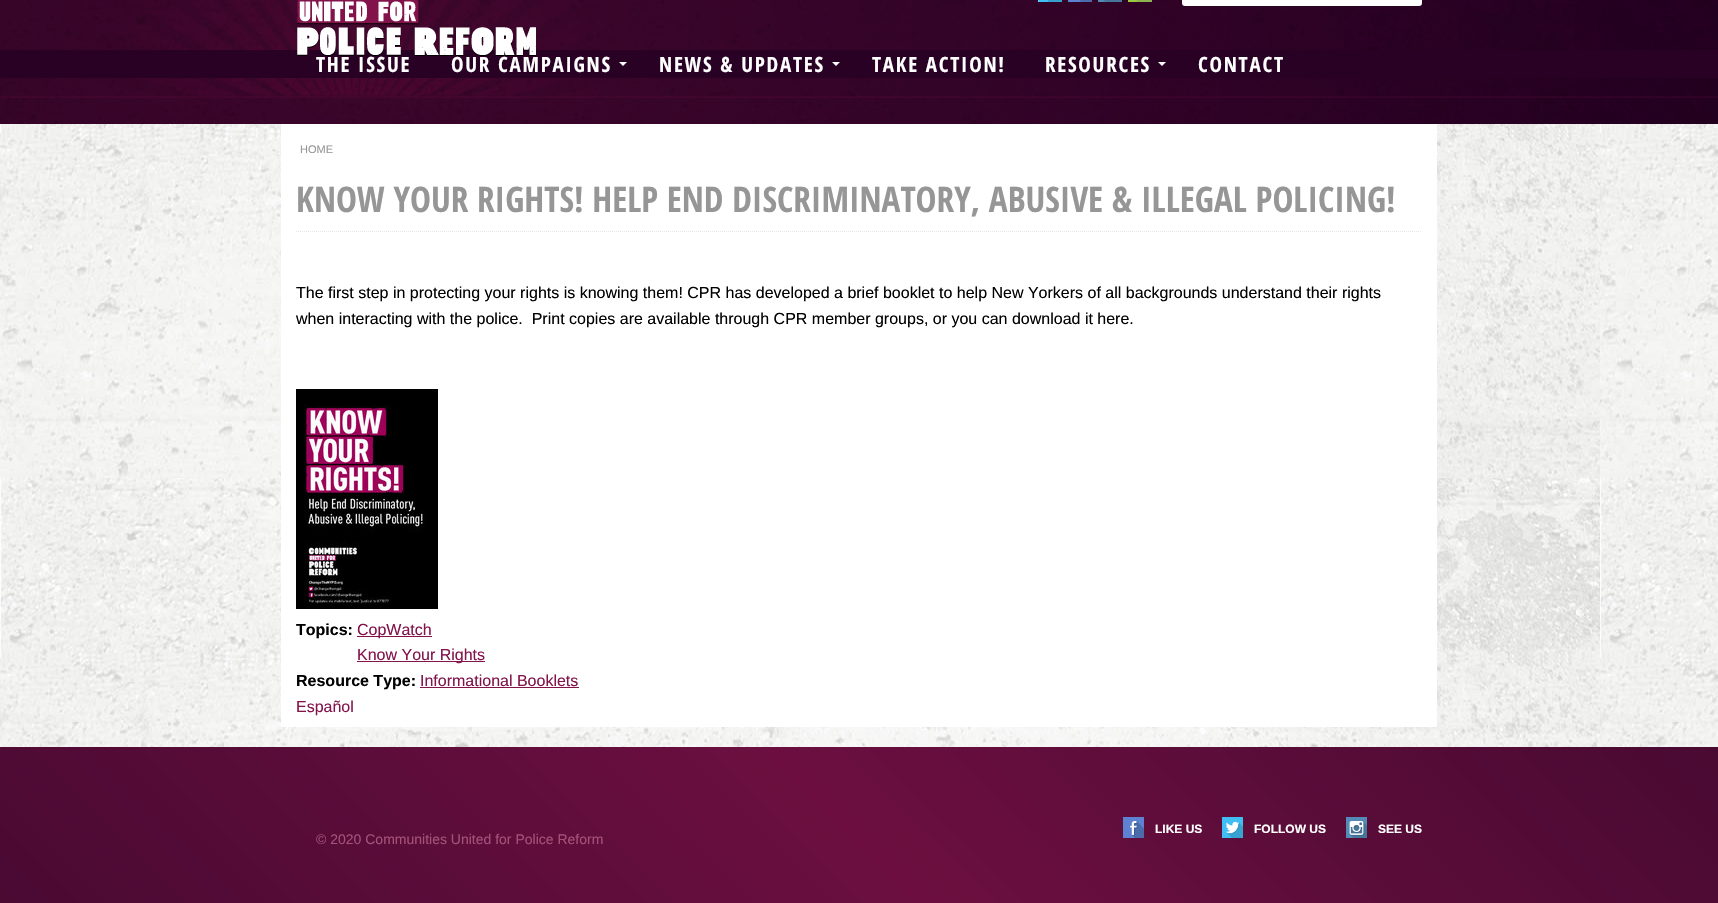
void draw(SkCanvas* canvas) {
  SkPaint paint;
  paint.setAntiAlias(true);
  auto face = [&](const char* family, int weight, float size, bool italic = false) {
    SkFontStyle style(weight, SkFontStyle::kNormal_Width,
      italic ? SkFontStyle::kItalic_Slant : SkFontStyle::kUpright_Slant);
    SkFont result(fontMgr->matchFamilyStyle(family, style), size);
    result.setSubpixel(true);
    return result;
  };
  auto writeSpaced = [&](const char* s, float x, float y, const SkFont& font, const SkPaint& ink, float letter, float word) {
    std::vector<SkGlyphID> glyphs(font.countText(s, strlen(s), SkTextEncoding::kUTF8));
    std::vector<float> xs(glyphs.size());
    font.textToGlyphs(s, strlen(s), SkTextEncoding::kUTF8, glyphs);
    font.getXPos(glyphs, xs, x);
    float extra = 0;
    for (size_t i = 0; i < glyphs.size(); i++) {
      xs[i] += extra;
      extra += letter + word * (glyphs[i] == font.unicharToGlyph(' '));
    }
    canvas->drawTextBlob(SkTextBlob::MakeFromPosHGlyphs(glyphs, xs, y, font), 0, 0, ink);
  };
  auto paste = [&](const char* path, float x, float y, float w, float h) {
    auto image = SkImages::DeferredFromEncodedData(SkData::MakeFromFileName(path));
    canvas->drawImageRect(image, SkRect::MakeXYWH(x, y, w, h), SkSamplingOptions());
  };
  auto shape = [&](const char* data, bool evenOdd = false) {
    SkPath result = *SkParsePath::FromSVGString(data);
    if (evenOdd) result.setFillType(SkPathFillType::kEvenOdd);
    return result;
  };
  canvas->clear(0xffffffff);
  paste("img/1.png", 0, 124, 1718, 623);
  paste("img/2.png", 0, 0, 1718, 124);
  paint.setColor(0xff290124);
  canvas->drawRect(SkRect::MakeXYWH(0, 50, 1718, 28), paint);
  paste("img/3.png", 297, 0, 239, 56);
  paste("img/4.png", 1038, 0, 24, 2);
  paste("img/5.png", 1068, 0, 24, 2);
  paste("img/6.png", 1098, 0, 24, 2);
  paste("img/7.png", 1128, 0, 24, 2);
  paint.setColor(0xffffffff);
  canvas->drawRoundRect(SkRect::MakeXYWH(1182, -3, 240, 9), 3, 3, paint);
  canvas->drawPath(shape("M619 62H627L623 66Z"), paint);
  canvas->drawPath(shape("M832 62H840L836 66Z"), paint);
  canvas->drawPath(shape("M1158 62H1166L1162 66Z"), paint);
  canvas->drawRect(SkRect::MakeXYWH(281, 124, 1156, 603), paint);
  paint.setStroke(true);
  paint.setStrokeWidth(1);
  paint.setColor(0xffe6e6e6);
  paint.setPathEffect(SkDashPathEffect::Make({{1, 1}}, 0));
  canvas->drawPath(shape("M296 231.5H1422"), paint);
  paint.setPathEffect(nullptr);
  paste("img/8.png", 296, 389, 142, 220);
  paint.setStroke(false);
  {
    const struct { float x, y, w, h; SkColor color; } items[] = {
      {357, 636, 75, 1, 0xff82134b},
      {357, 661, 128, 1, 0xff82134b},
      {420, 687, 159, 1, 0xff82134b},
    };
    for (auto [x, y, w, h, color] : items) {
      paint.setColor(color);
      canvas->drawRect(SkRect::MakeXYWH(x, y, w, h), paint);
    }
  }
  {
    const SkColor colors[] = {0xff490a32, 0xff6c0f40, 0xff490a32};
    const float stops[] = {0, 0.5f, 1};
    const SkPoint ends[] = {{387, 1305}, {1331, 360}};
    paint.setShader(SkGradientShader::MakeLinear(ends, colors, stops, 3, SkTileMode::kClamp));
    paint.setAlpha(255);
  }
  canvas->drawRect(SkRect::MakeXYWH(0, 747, 1718, 156), paint);
  paste("img/9.png", 1123, 817, 21, 21);
  paste("img/10.png", 1222, 817, 21, 21);
  paste("img/11.png", 1346, 817, 21, 21);
  auto f0 = face("Open Sans Condensed", 700, 21);
  paint.setShader(nullptr);
  paint.setColor(0xffffffff);
  {
    const struct { const char* s; float x, y; } items[] = {
      {"THE ISSUE", 316, 72},
      {"OUR CAMPAIGNS", 451, 72},
      {"NEWS & UPDATES", 659, 72},
      {"TAKE ACTION!", 872, 72},
      {"RESOURCES", 1045, 72},
      {"CONTACT", 1198, 72},
    };
    for (auto [s, x, y] : items) {
      writeSpaced(s, x, y, f0, paint, 1.75f, 0);
    }
  }
  auto f1 = face("Liberation Sans", 400, 11);
  paint.setColor(0xff969696);
  canvas->drawString("HOME", 300, 153, f1, paint);
  auto f2 = face("Open Sans Condensed", 700, 35.2f);
  canvas->drawString("KNOW YOUR RIGHTS! HELP END DISCRIMINATORY, ABUSIVE & ILLEGAL POLICING!", 296, 212, f2, paint);
  auto f3 = face("Liberation Sans", 400, 16);
  paint.setColor(0xff000001);
  canvas->drawString("The first step in protecting your rights is knowing them! CPR has developed a brief booklet to help New Yorkers of all backgrounds understand their rights", 296, 298, f3, paint);
  canvas->drawString("when interacting with the police.  Print copies are available through CPR member groups, or you can download it here.", 296, 324, f3, paint);
  auto f4 = face("Liberation Sans", 700, 16);
  canvas->drawString("Topics:", 296, 635, f4, paint);
  paint.setColor(0xff82134b);
  canvas->drawString("CopWatch", 357, 635, f3, paint);
  canvas->drawString("Know Your Rights", 357, 660, f3, paint);
  paint.setColor(0xff000001);
  canvas->drawString("Resource Type:", 296, 686, f4, paint);
  paint.setColor(0xff82134b);
  canvas->drawString("Informational Booklets", 420, 686, f3, paint);
  canvas->drawString("Español", 296, 712, f3, paint);
  auto f5 = face("Liberation Sans", 700, 12);
  paint.setColor(0xffffffff);
  {
    const struct { const char* s; float x, y; } items[] = {
      {"LIKE US", 1155, 833},
      {"FOLLOW US", 1254, 833},
      {"SEE US", 1378, 833},
    };
    for (auto [s, x, y] : items) {
      canvas->drawString(s, x, y, f5, paint);
    }
  }
  auto f6 = face("Liberation Sans", 400, 14);
  paint.setColor(0xffa4527a);
  canvas->drawString("© 2020 Communities United for Police Reform", 316, 844, f6, paint);
}
